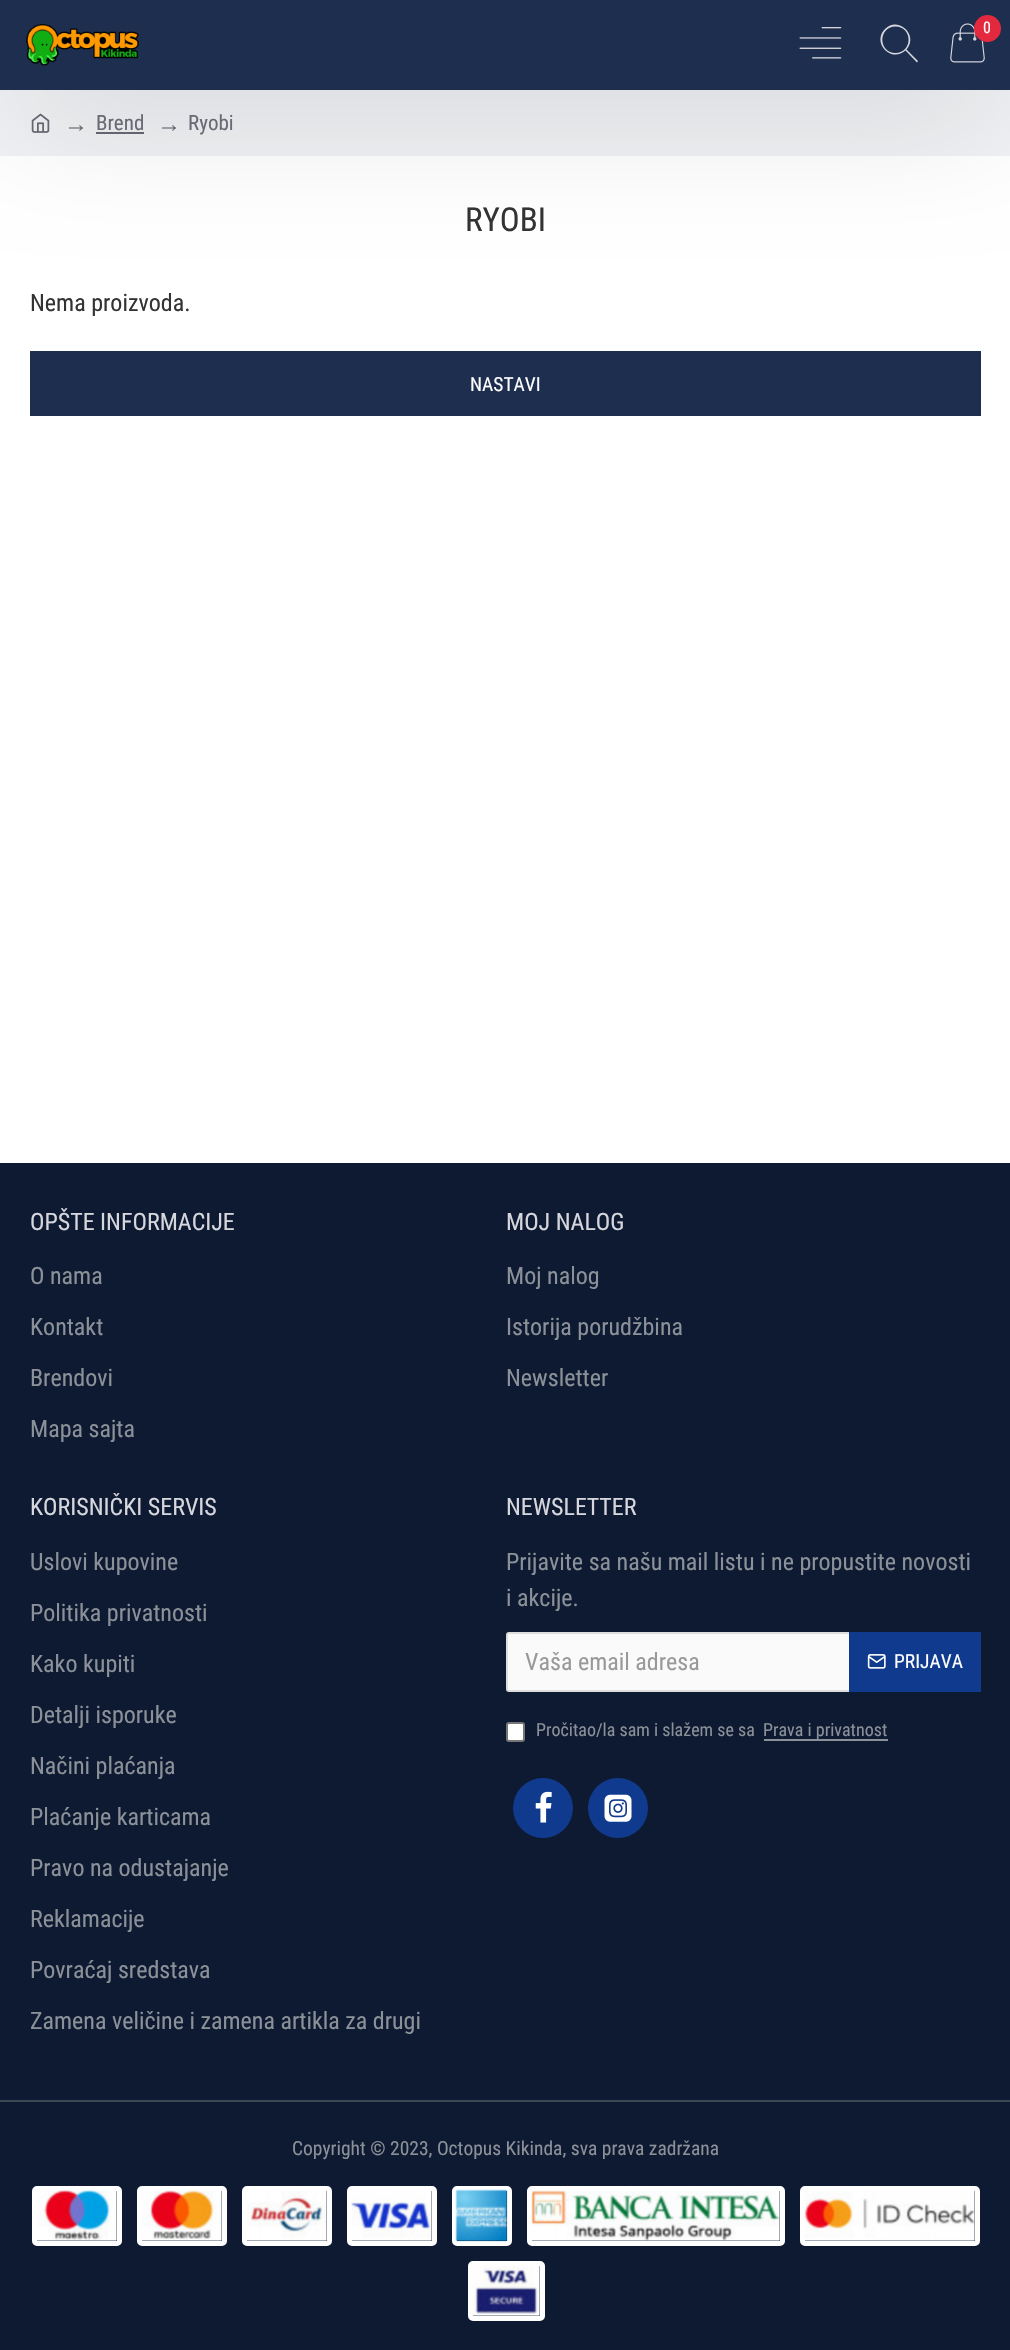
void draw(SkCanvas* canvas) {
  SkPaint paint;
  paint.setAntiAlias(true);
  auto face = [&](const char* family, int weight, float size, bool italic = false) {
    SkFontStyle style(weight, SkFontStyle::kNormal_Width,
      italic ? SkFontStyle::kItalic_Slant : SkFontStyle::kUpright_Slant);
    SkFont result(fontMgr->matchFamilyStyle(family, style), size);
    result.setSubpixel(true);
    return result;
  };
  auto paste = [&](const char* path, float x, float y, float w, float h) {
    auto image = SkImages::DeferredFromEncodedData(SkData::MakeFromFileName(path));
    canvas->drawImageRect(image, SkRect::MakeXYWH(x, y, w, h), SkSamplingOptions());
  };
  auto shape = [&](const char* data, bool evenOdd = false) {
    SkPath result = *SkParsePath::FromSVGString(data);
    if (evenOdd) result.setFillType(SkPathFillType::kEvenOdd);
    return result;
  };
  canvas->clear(0xffffffff);
  paint.setColor(0xfff0f2f5);
  canvas->drawRect(SkRect::MakeXYWH(0, 90, 1010, 66), paint);
  paste("img/4.png", 31, 113, 19, 20);
  paint.setColor(0xff696973);
  canvas->drawRect(SkRect::MakeXYWH(96, 132, 48, 2), paint);
  paint.setColor(0x33000000);
  paint.setMaskFilter(SkMaskFilter::MakeBlur(kNormal_SkBlurStyle, 67.5f));
  canvas->drawRect(SkRect::MakeXYWH(15, 38, 981, 60), paint);
  paint.setMaskFilter(nullptr);
  paint.setColor(0xff1e2e4e);
  canvas->drawRect(SkRect::MakeXYWH(0, 0, 1010, 90), paint);
  paste("img/1.png", 26, 24, 113, 42);
  paste("img/2.png", 799, 27, 43, 32);
  paint.setColor(0xffd6d6dd);
  canvas->drawPath(shape("M905.5 50.5L917 62.5L918 61L906.5 49.5C919 35.5 898.5 15.5 885 29C871.5 42.5 891 63.5 905.5 50.5ZM895.5 26.5C913 26.5 913 53 895.5 53C878 53 878 26.5 895.5 26.5Z"), paint);
  paste("img/3.png", 950, 23, 35, 40);
  paint.setColor(0xffe2293d);
  canvas->drawCircle(987.5f, 28.5f, 13.5f, paint);
  paint.setColor(0xff1e2e4e);
  canvas->drawRect(SkRect::MakeXYWH(30, 351, 951, 65), paint);
  paint.setColor(0xff0e1a32);
  canvas->drawRect(SkRect::MakeXYWH(0, 1163, 1010, 1187), paint);
  paint.setColor(0xfffafafa);
  canvas->drawRoundRect(SkRect::MakeXYWH(507, 1633, 473, 58), 2, 2, paint);
  paint.setStroke(true);
  paint.setStrokeWidth(2);
  paint.setColor(0xffdddddd);
  canvas->drawRoundRect(SkRect::MakeXYWH(507, 1633, 473, 58), 2, 2, paint);
  paint.setStroke(false);
  paint.setColor(0xff0f3a8d);
  canvas->drawRect(SkRect::MakeXYWH(849, 1632, 132, 60), paint);
  paste("img/5.png", 867, 1654, 19, 15);
  paint.setColor(0xffffffff);
  canvas->drawRoundRect(SkRect::MakeXYWH(507, 1723, 17, 18), 2, 2, paint);
  paint.setStroke(true);
  paint.setColor(0xff767676);
  canvas->drawRoundRect(SkRect::MakeXYWH(507, 1723, 17, 18), 2, 2, paint);
  paint.setStroke(false);
  paint.setColor(0xff8b9198);
  canvas->drawRect(SkRect::MakeXYWH(764, 1739, 124, 2), paint);
  paint.setColor(0xff0f3a8d);
  canvas->drawCircle(543, 1808, 30, paint);
  paste("img/6.png", 535, 1791, 17, 32);
  canvas->drawCircle(618, 1808, 30, paint);
  paste("img/7.png", 604, 1794, 28, 28);
  paint.setColor(0xff3a4754);
  canvas->drawRect(SkRect::MakeXYWH(0, 2100, 1010, 2), paint);
  paint.setStroke(true);
  paint.setStrokeWidth(5);
  paint.setColor(0xffffffff);
  canvas->drawRoundRect(SkRect::MakeXYWH(34.5f, 2188.5f, 85, 55), 2.5f, 2.5f, paint);
  paste("img/8.png", 37, 2189, 80, 52);
  canvas->drawRoundRect(SkRect::MakeXYWH(139.5f, 2188.5f, 85, 55), 2.5f, 2.5f, paint);
  paste("img/9.png", 142, 2190, 80, 51);
  canvas->drawRoundRect(SkRect::MakeXYWH(244.5f, 2188.5f, 85, 55), 2.5f, 2.5f, paint);
  paste("img/10.png", 246, 2190, 81, 51);
  canvas->drawRoundRect(SkRect::MakeXYWH(349.5f, 2188.5f, 85, 55), 2.5f, 2.5f, paint);
  paste("img/11.png", 350, 2191, 82, 50);
  canvas->drawRoundRect(SkRect::MakeXYWH(454.5f, 2188.5f, 55, 55), 2.5f, 2.5f, paint);
  paste("img/12.png", 455, 2189, 53, 53);
  canvas->drawRoundRect(SkRect::MakeXYWH(529.5f, 2188.5f, 253, 55), 2.5f, 2.5f, paint);
  paste("img/13.png", 531, 2190, 249, 51);
  canvas->drawRoundRect(SkRect::MakeXYWH(802.5f, 2188.5f, 175, 55), 2.5f, 2.5f, paint);
  paste("img/14.png", 804, 2191, 171, 50);
  canvas->drawRoundRect(SkRect::MakeXYWH(470.5f, 2263.5f, 72, 55), 2.5f, 2.5f, paint);
  paste("img/15.png", 473, 2265, 67, 51);
  auto f0 = face("Roboto Condensed", 400, 16);
  paint.setStroke(false);
  canvas->drawString("0", 983, 33, f0, paint);
  auto f1 = face("Liberation Serif", 400, 24);
  paint.setColor(0xff696973);
  canvas->drawString("→", 64, 132, f1, paint);
  auto f2 = face("Roboto Condensed", 400, 21);
  canvas->drawString("Brend", 96, 130, f2, paint);
  canvas->drawString("→", 157, 132, f1, paint);
  canvas->drawString("Ryobi", 188, 130, f2, paint);
  auto f3 = face("Roboto Condensed", 400, 33);
  paint.setColor(0xff333333);
  canvas->drawString("RYOBI", 465, 231, f3, paint);
  auto f4 = face("Roboto Condensed", 400, 24);
  canvas->drawString("Nema proizvoda.", 30, 311, f4, paint);
  auto f5 = face("Roboto Condensed", 400, 19.5f);
  paint.setColor(0xffffffff);
  canvas->drawString("NASTAVI", 470, 391, f5, paint);
  paint.setColor(0xffd6d6dd);
  canvas->drawString("OPŠTE INFORMACIJE", 30, 1230, f4, paint);
  paint.setColor(0xff8b9198);
  {
    const struct { const char* s; float x, y; } items[] = {
      {"O nama", 30, 1284},
      {"Kontakt", 30, 1335},
      {"Brendovi", 30, 1386},
      {"Mapa sajta", 30, 1437},
    };
    for (auto [s, x, y] : items) {
      canvas->drawString(s, x, y, f4, paint);
    }
  }
  paint.setColor(0xffd6d6dd);
  canvas->drawString("MOJ NALOG", 506, 1230, f4, paint);
  paint.setColor(0xff8b9198);
  {
    const struct { const char* s; float x, y; } items[] = {
      {"Moj nalog", 506, 1284},
      {"Istorija porudžbina", 506, 1335},
      {"Newsletter", 506, 1386},
    };
    for (auto [s, x, y] : items) {
      canvas->drawString(s, x, y, f4, paint);
    }
  }
  paint.setColor(0xffd6d6dd);
  canvas->drawString("KORISNIČKI SERVIS", 30, 1515, f4, paint);
  paint.setColor(0xff8b9198);
  {
    const struct { const char* s; float x, y; } items[] = {
      {"Uslovi kupovine", 30, 1570},
      {"Politika privatnosti", 30, 1621},
      {"Kako kupiti", 30, 1672},
      {"Detalji isporuke", 30, 1723},
      {"Načini plaćanja", 30, 1774},
      {"Plaćanje karticama", 30, 1825},
      {"Pravo na odustajanje", 30, 1876},
      {"Reklamacije", 30, 1927},
      {"Povraćaj sredstava", 30, 1978},
      {"Zamena veličine i zamena artikla za drugi", 30, 2029},
    };
    for (auto [s, x, y] : items) {
      canvas->drawString(s, x, y, f4, paint);
    }
  }
  paint.setColor(0xffd6d6dd);
  canvas->drawString("NEWSLETTER", 506, 1515, f4, paint);
  paint.setColor(0xff8b9198);
  canvas->drawString("Prijavite sa našu mail listu i ne propustite novosti", 506, 1570, f4, paint);
  canvas->drawString("i akcije.", 506, 1606, f4, paint);
  paint.setColor(0xff999999);
  canvas->drawString("Vaša email adresa", 525, 1670, f4, paint);
  paint.setColor(0xffffffff);
  canvas->drawString("PRIJAVA", 894, 1668, f5, paint);
  auto f6 = face("Roboto Condensed", 400, 18);
  paint.setColor(0xff8b9198);
  canvas->drawString("Pročitao/la sam i slažem se sa", 536, 1736, f6, paint);
  canvas->drawString("Prava i privatnost", 763, 1736, f6, paint);
  canvas->drawString("Copyright © 2023, Octopus Kikinda, sva prava zadržana", 292, 2155, f5, paint);
}
